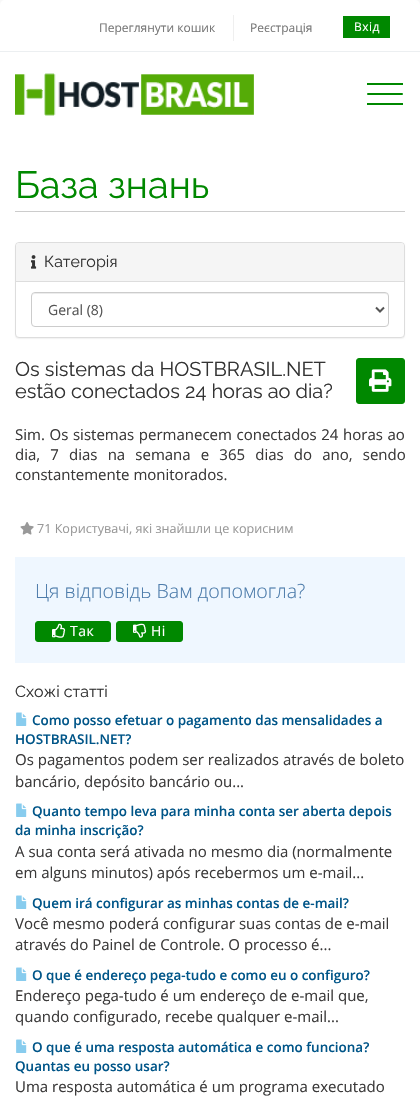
void draw(SkCanvas* canvas) {
  SkPaint paint;
  paint.setAntiAlias(true);
  auto face = [&](const char* family, int weight, float size, bool italic = false) {
    SkFontStyle style(weight, SkFontStyle::kNormal_Width,
      italic ? SkFontStyle::kItalic_Slant : SkFontStyle::kUpright_Slant);
    SkFont result(fontMgr->matchFamilyStyle(family, style), size);
    result.setSubpixel(true);
    return result;
  };
  auto writeSpaced = [&](const char* s, float x, float y, const SkFont& font, const SkPaint& ink, float letter, float word) {
    std::vector<SkGlyphID> glyphs(font.countText(s, strlen(s), SkTextEncoding::kUTF8));
    std::vector<float> xs(glyphs.size());
    font.textToGlyphs(s, strlen(s), SkTextEncoding::kUTF8, glyphs);
    font.getXPos(glyphs, xs, x);
    float extra = 0;
    for (size_t i = 0; i < glyphs.size(); i++) {
      xs[i] += extra;
      extra += letter + word * (glyphs[i] == font.unicharToGlyph(' '));
    }
    canvas->drawTextBlob(SkTextBlob::MakeFromPosHGlyphs(glyphs, xs, y, font), 0, 0, ink);
  };
  auto paste = [&](const char* path, float x, float y, float w, float h) {
    auto image = SkImages::DeferredFromEncodedData(SkData::MakeFromFileName(path));
    canvas->drawImageRect(image, SkRect::MakeXYWH(x, y, w, h), SkSamplingOptions());
  };
  auto shape = [&](const char* data, bool evenOdd = false) {
    SkPath result = *SkParsePath::FromSVGString(data);
    if (evenOdd) result.setFillType(SkPathFillType::kEvenOdd);
    return result;
  };
  canvas->clear(0xfff8f8f8);
  paint.setColor(0xffffffff);
  canvas->drawPath(shape("M5 0H415C418 0 420 2 420 5V52H0V5C0 2 2 0 5 0Z"), paint);
  {
    const struct { float x, y, w, h; SkColor color; } items[] = {
      {0, 51, 420, 1, 0xffeceff1},
      {233, 15, 1, 26, 0xffefefef},
      {343, 16, 47, 22, 0xff008800},
      {0, 52, 420, 1048, 0xffffffff},
    };
    for (auto [x, y, w, h, color] : items) {
      paint.setColor(color);
      canvas->drawRect(SkRect::MakeXYWH(x, y, w, h), paint);
    }
  }
  paste("img/1.png", 15, 73, 239, 43);
  paint.setColor(0xff008800);
  canvas->drawRoundRect(SkRect::MakeXYWH(367, 93, 36, 2), 1, 1, paint);
  {
    const struct { float x, y, w, h; SkColor color; } items[] = {
      {367, 83, 36, 2, 0xff008800},
      {367, 103, 36, 2, 0xff008800},
      {15, 211, 390, 1, 0xffcccccc},
    };
    for (auto [x, y, w, h, color] : items) {
      paint.setColor(color);
      canvas->drawRect(SkRect::MakeXYWH(x, y, w, h), paint);
    }
  }
  paint.setColor(0x0d000000);
  paint.setMaskFilter(SkMaskFilter::MakeBlur(kNormal_SkBlurStyle, 0.5f));
  canvas->drawRoundRect(SkRect::MakeXYWH(15, 243, 390, 96), 4, 4, paint);
  paint.setMaskFilter(nullptr);
  paint.setColor(0xffffffff);
  canvas->drawRoundRect(SkRect::MakeXYWH(15.5f, 242.5f, 389, 95), 3.5f, 3.5f, paint);
  paint.setStroke(true);
  paint.setStrokeWidth(1);
  paint.setColor(0xffdddddd);
  canvas->drawRoundRect(SkRect::MakeXYWH(15.5f, 242.5f, 389, 95), 3.5f, 3.5f, paint);
  paint.setStroke(false);
  paint.setColor(0xfff5f5f5);
  canvas->drawPath(shape("M19 243H401C402.5 243 404 244.5 404 246V282H16V246C16 244.5 17.5 243 19 243Z"), paint);
  paint.setColor(0xffdddddd);
  canvas->drawRect(SkRect::MakeXYWH(16, 281, 388, 1), paint);
  paste("img/2.png", 31, 255, 6, 14);
  paint.setColor(0xffececec);
  canvas->drawPath(shape("M35 294H385C387 294 388 295 388 297C388 295 387 293 385 293H35L33 294L32 297C32 295 33 294 35 294Z"), paint);
  paint.setStroke(true);
  paint.setColor(0xffcccccc);
  canvas->drawRoundRect(SkRect::MakeXYWH(31.5f, 292.5f, 357, 34), 3.5f, 3.5f, paint);
  paint.setStrokeWidth(2);
  paint.setColor(0xff555555);
  canvas->drawPath(shape("M376 307.5L380 311.5L384 307.5"), paint);
  paint.setStroke(false);
  paint.setColor(0xff008800);
  canvas->drawRoundRect(SkRect::MakeXYWH(356.5f, 358.5f, 48, 45), 2.5f, 2.5f, paint);
  paint.setStroke(true);
  paint.setStrokeWidth(1);
  canvas->drawRoundRect(SkRect::MakeXYWH(356.5f, 358.5f, 48, 45), 2.5f, 2.5f, paint);
  paste("img/3.png", 369, 369, 23, 23);
  paste("img/4.png", 20, 522, 14, 13);
  paint.setStroke(false);
  paint.setColor(0xffeff7ff);
  canvas->drawRect(SkRect::MakeXYWH(15, 557, 390, 106), paint);
  paint.setColor(0xff008800);
  canvas->drawRoundRect(SkRect::MakeXYWH(35.5f, 621.5f, 75, 20), 2.5f, 2.5f, paint);
  paint.setStroke(true);
  canvas->drawRoundRect(SkRect::MakeXYWH(35.5f, 621.5f, 75, 20), 2.5f, 2.5f, paint);
  paste("img/5.png", 52, 623, 14, 15);
  paint.setStroke(false);
  canvas->drawRoundRect(SkRect::MakeXYWH(116.5f, 621.5f, 66, 20), 2.5f, 2.5f, paint);
  paint.setStroke(true);
  canvas->drawRoundRect(SkRect::MakeXYWH(116.5f, 621.5f, 66, 20), 2.5f, 2.5f, paint);
  paste("img/6.png", 133, 623, 14, 15);
  paste("img/7.png", 16, 712, 11, 14);
  paste("img/7.png", 16, 803, 11, 14);
  paste("img/7.png", 16, 895, 11, 14);
  paste("img/7.png", 16, 967, 11, 14);
  paste("img/7.png", 16, 1039, 11, 14);
  auto f0 = face("Open Sans", 400, 12);
  paint.setStroke(false);
  paint.setColor(0xff777777);
  canvas->drawString("Переглянути кошик", 99, 32, f0, paint);
  canvas->drawString("Реєстрація", 250, 32, f0, paint);
  paint.setColor(0xffffffff);
  writeSpaced("Вхід", 354, 31, f0, paint, 0.5f, 0);
  auto f1 = face("Raleway", 400, 38);
  paint.setColor(0xff008800);
  canvas->drawString("База знань", 15, 198, f1, paint);
  auto f2 = face("Raleway", 400, 16);
  paint.setColor(0xff333333);
  canvas->drawString("Категорія", 44, 267, f2, paint);
  auto f3 = face("Open Sans", 400, 14);
  paint.setColor(0xff555555);
  canvas->drawString("Geral (8)", 48, 315, f3, paint);
  auto f4 = face("Raleway", 400, 20);
  paint.setColor(0xff333333);
  canvas->drawString("Os sistemas da HOSTBRASIL.NET", 15, 376, f4, paint);
  canvas->drawString("estão conectados 24 horas ao dia?", 15, 398, f4, paint);
  auto f5 = face("Open Sans", 400, 15);
  paint.setColor(0xff3b3a3a);
  writeSpaced("Sim. Os sistemas permanecem conectados 24 horas ao", 15, 440, f5, paint, 0, 0.75f);
  writeSpaced("dia, 7 dias na semana e 365 dias do ano, sendo", 15, 460, f5, paint, 0, 6.25f);
  canvas->drawString("constantemente monitorados.", 15, 480, f5, paint);
  auto f6 = face("Open Sans", 400, 12.6f);
  paint.setColor(0xff999999);
  canvas->drawString("71 Користувачі, які знайшли це корисним", 37, 533, f6, paint);
  auto f7 = face("Open Sans", 300, 19.6f);
  paint.setColor(0xff4d7cab);
  canvas->drawString("Ця відповідь Вам допомогла?", 35, 598, f7, paint);
  paint.setColor(0xffffffff);
  writeSpaced("Так", 70, 636, f3, paint, 0.5f, 0);
  writeSpaced("Ні", 151, 636, f3, paint, 0.5f, 0);
  paint.setColor(0xff333333);
  canvas->drawString("Схожі статті", 15, 697, f2, paint);
  auto f8 = face("Open Sans", 600, 13.45f);
  paint.setColor(0xff005588);
  canvas->drawString("Como posso efetuar o pagamento das mensalidades a", 32, 725, f8, paint);
  canvas->drawString("HOSTBRASIL.NET?", 15, 744, f8, paint);
  paint.setColor(0xff3b3a3a);
  canvas->drawString("Os pagamentos podem ser realizados através de boleto", 15, 765, f5, paint);
  canvas->drawString("bancário, depósito bancário ou...", 15, 787, f5, paint);
  paint.setColor(0xff005588);
  canvas->drawString("Quanto tempo leva para minha conta ser aberta depois", 32, 816, f8, paint);
  canvas->drawString("da minha inscrição?", 15, 835, f8, paint);
  paint.setColor(0xff3b3a3a);
  canvas->drawString("A sua conta será ativada no mesmo dia (normalmente", 15, 857, f5, paint);
  canvas->drawString("em alguns minutos) após recebermos um e-mail...", 15, 878, f5, paint);
  paint.setColor(0xff005588);
  canvas->drawString("Quem irá configurar as minhas contas de e-mail?", 32, 908, f8, paint);
  paint.setColor(0xff3b3a3a);
  canvas->drawString("Você mesmo poderá configurar suas contas de e-mail", 15, 929, f5, paint);
  canvas->drawString("através do Painel de Controle. O processo é...", 15, 950, f5, paint);
  paint.setColor(0xff005588);
  canvas->drawString("O que é endereço pega-tudo e como eu o configuro?", 32, 980, f8, paint);
  paint.setColor(0xff3b3a3a);
  canvas->drawString("Endereço pega-tudo é um endereço de e-mail que,", 15, 1001, f5, paint);
  canvas->drawString("quando configurado, recebe qualquer e-mail...", 15, 1022, f5, paint);
  paint.setColor(0xff005588);
  canvas->drawString("O que é uma resposta automática e como funciona?", 32, 1052, f8, paint);
  canvas->drawString("Quantas eu posso usar?", 15, 1071, f8, paint);
  paint.setColor(0xff3b3a3a);
  canvas->drawString("Uma resposta automática é um programa executado", 15, 1092, f5, paint);
}
